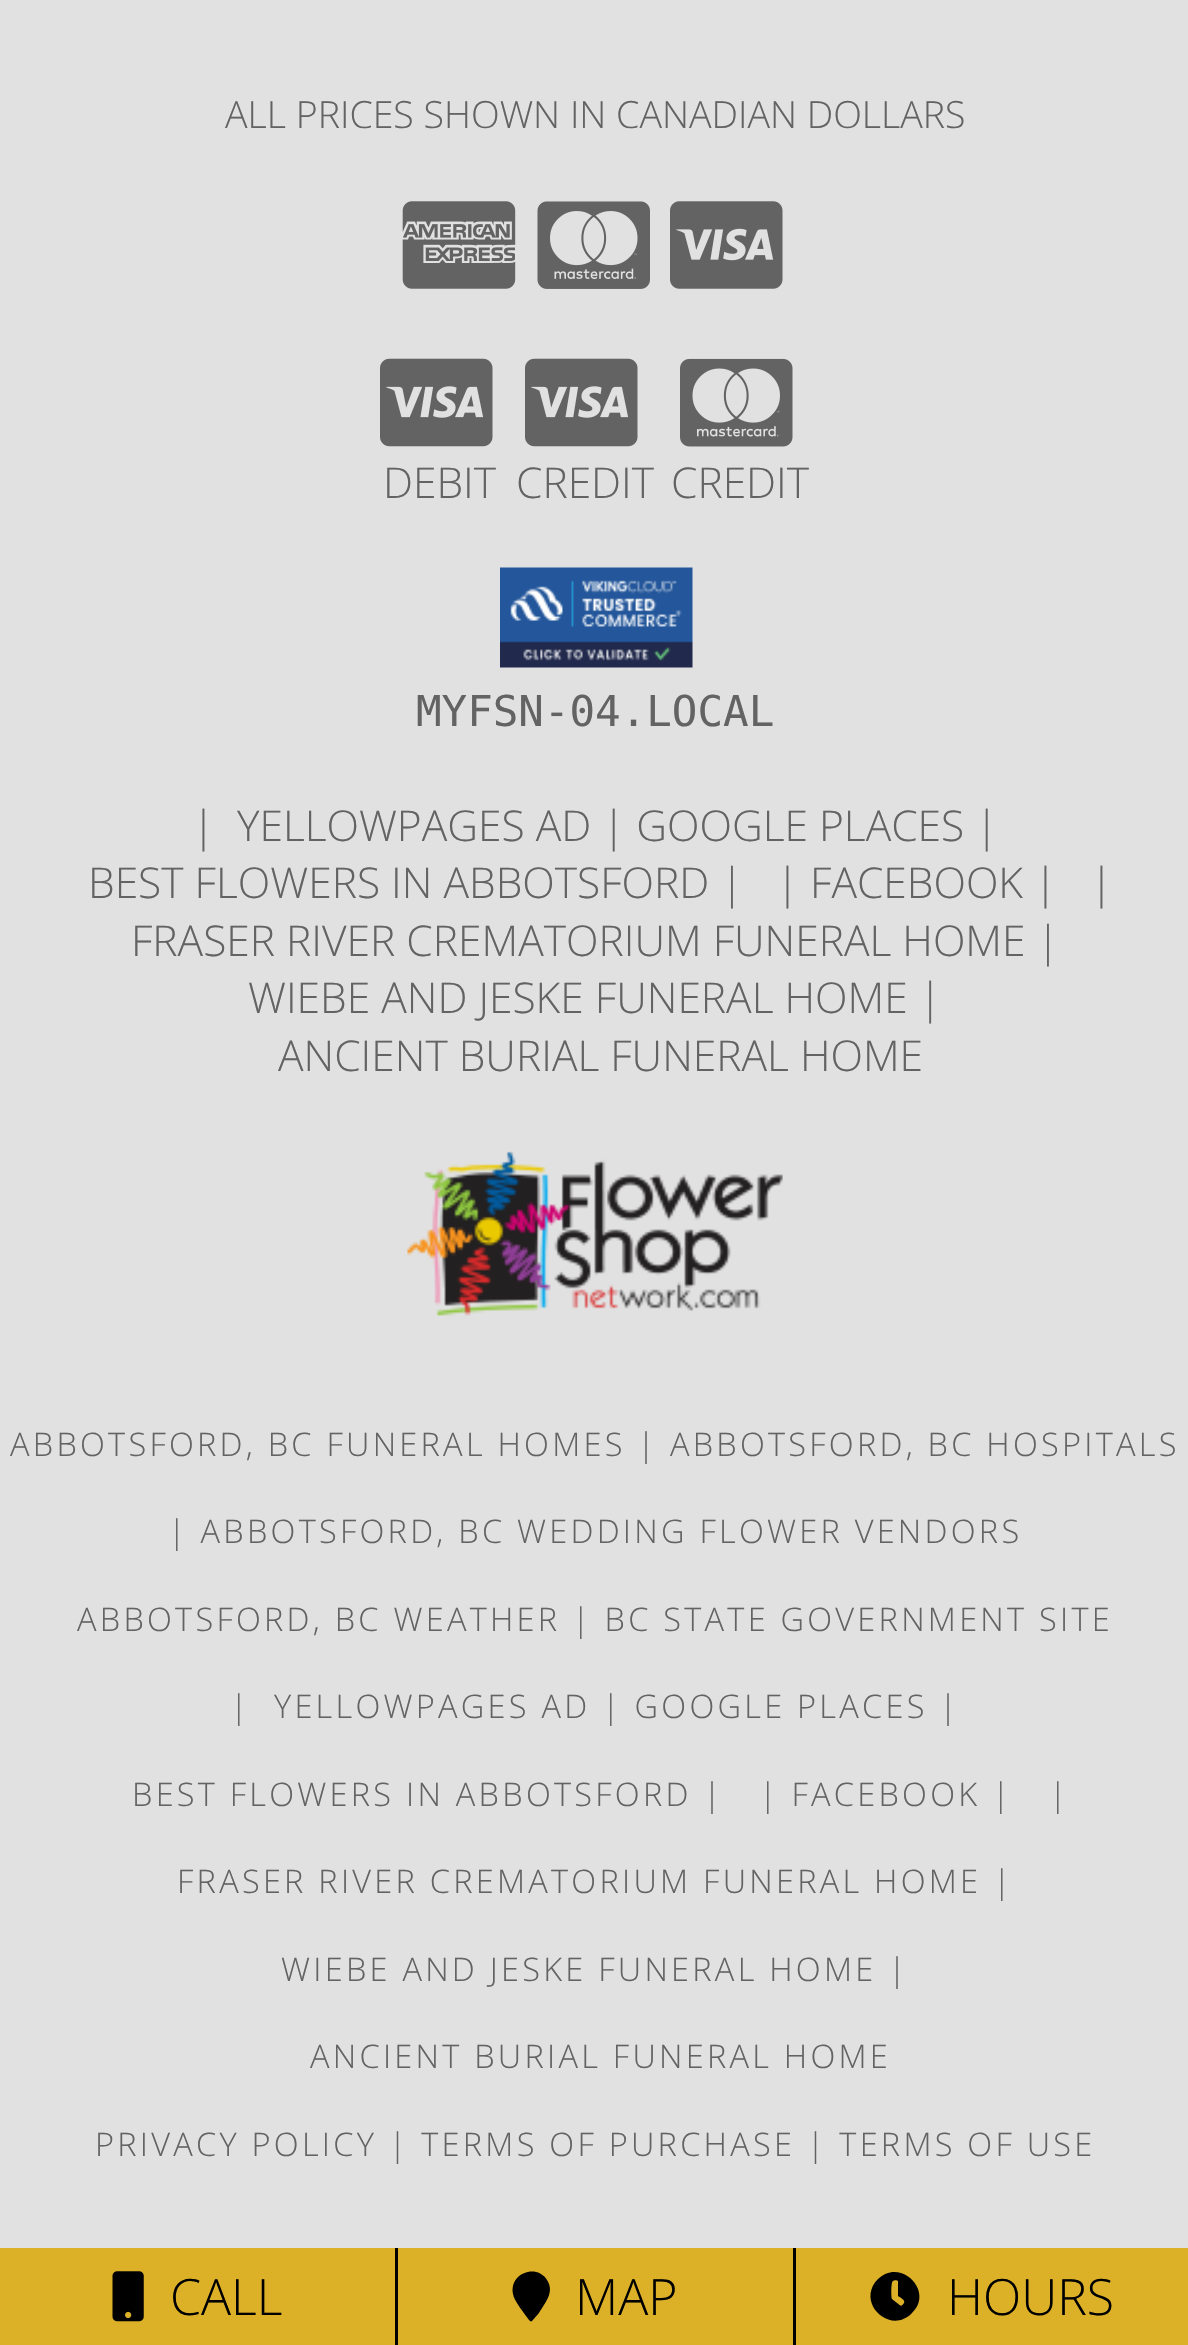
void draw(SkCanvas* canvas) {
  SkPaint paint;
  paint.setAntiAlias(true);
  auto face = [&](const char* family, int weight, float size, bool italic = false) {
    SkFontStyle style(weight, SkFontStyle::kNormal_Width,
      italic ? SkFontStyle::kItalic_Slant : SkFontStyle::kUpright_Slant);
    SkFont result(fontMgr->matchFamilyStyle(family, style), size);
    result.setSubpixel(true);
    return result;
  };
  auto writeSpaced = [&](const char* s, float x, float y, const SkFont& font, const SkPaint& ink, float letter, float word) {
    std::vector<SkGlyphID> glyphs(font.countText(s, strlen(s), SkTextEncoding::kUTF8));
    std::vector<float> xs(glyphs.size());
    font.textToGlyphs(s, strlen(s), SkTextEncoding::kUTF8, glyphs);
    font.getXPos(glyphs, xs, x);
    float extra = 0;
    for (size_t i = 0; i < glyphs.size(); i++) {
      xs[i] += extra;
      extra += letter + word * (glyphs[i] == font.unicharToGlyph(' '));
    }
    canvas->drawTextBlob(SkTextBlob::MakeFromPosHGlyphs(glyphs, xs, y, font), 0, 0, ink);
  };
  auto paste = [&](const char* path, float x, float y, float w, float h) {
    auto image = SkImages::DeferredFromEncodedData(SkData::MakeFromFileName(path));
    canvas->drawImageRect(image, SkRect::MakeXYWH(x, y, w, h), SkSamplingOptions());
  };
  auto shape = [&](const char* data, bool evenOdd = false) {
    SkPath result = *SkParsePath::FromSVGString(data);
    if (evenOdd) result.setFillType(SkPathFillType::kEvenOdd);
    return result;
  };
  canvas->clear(0xffe1e1e1);
  paste("img/1.png", 402, 201, 114, 88);
  paste("img/2.png", 537, 201, 113, 88);
  paste("img/3.png", 670, 201, 113, 88);
  paste("img/4.png", 380, 358, 113, 89);
  paste("img/4.png", 525, 358, 113, 89);
  paste("img/5.png", 680, 358, 113, 89);
  paste("img/6.png", 500, 567, 193, 101);
  paste("img/7.png", 407, 1151, 376, 165);
  paint.setColor(0xffdcb127);
  canvas->drawRect(SkRect::MakeXYWH(0, 2248, 395, 97), paint);
  paste("img/8.png", 112, 2271, 32, 51);
  canvas->drawRect(SkRect::MakeXYWH(398, 2248, 395, 97), paint);
  paint.setColor(0xff000000);
  canvas->drawRect(SkRect::MakeXYWH(395, 2248, 3, 97), paint);
  canvas->drawPath(shape("M529 2320C525 2314 514 2301 513 2294C509 2274 536 2263 547 2280C555 2292 545 2303 539 2313L532 2321C531 2322 530 2321 529 2320Z"), paint);
  paint.setColor(0xffdcb127);
  canvas->drawRect(SkRect::MakeXYWH(796, 2248, 392, 97), paint);
  paint.setColor(0xff000000);
  canvas->drawRect(SkRect::MakeXYWH(793, 2248, 3, 97), paint);
  canvas->drawPath(shape("M878 2279C900 2257 935 2291 912 2313C890 2336 855 2302 878 2279ZM904 2303C906 2300 899 2297 898 2296V2281C897 2280 894 2280 893 2281C891 2281 891 2297 892 2299L897 2303C901 2306 901 2307 904 2303Z"), paint);
  auto f0 = face("Open Sans", 300, 37.5f);
  paint.setColor(0xff636363);
  canvas->drawString("ALL PRICES SHOWN IN CANADIAN DOLLARS", 225, 128, f0, paint);
  auto f1 = face("Open Sans", 300, 42.5f);
  {
    const struct { const char* s; float x, y; } items[] = {
      {"DEBIT", 383, 498},
      {"CREDIT", 516, 498},
      {"CREDIT", 671, 498},
    };
    for (auto [s, x, y] : items) {
      canvas->drawString(s, x, y, f1, paint);
    }
  }
  auto f2 = face("DejaVu Sans Mono", 400, 42.5f);
  canvas->drawString("MYFSN-04.LOCAL", 416, 726, f2, paint);
  {
    const struct { const char* s; float x, y; } items[] = {
      {"|", 192, 841},
      {"YELLOWPAGES AD | GOOGLE PLACES |", 237, 841},
      {"BEST FLOWERS IN ABBOTSFORD |", 88, 898},
      {"| FACEBOOK |", 776, 898},
      {"|", 1090, 898},
      {"FRASER RIVER CREMATORIUM FUNERAL HOME |", 131, 956},
      {"WIEBE AND JESKE FUNERAL HOME |", 248, 1013},
      {"ANCIENT BURIAL FUNERAL HOME", 278, 1071},
    };
    for (auto [s, x, y] : items) {
      canvas->drawString(s, x, y, f1, paint);
    }
  }
  auto f3 = face("Open Sans", 300, 32.5f);
  {
    const struct { const char* s; float x, y; } items[] = {
      {"ABBOTSFORD, BC FUNERAL HOMES | ABBOTSFORD, BC HOSPITALS", 10, 1456},
      {"| ABBOTSFORD, BC WEDDING FLOWER VENDORS", 168, 1543},
      {"ABBOTSFORD, BC WEATHER | BC STATE GOVERNMENT SITE", 77, 1631},
      {"|", 230, 1718},
      {"YELLOWPAGES AD | GOOGLE PLACES |", 274, 1718},
      {"BEST FLOWERS IN ABBOTSFORD |", 132, 1806},
      {"| FACEBOOK |", 759, 1806},
      {"|", 1049, 1806},
      {"FRASER RIVER CREMATORIUM FUNERAL HOME |", 177, 1893},
      {"WIEBE AND JESKE FUNERAL HOME |", 281, 1981},
      {"ANCIENT BURIAL FUNERAL HOME", 310, 2068},
      {"PRIVACY POLICY | TERMS OF PURCHASE | TERMS OF USE", 95, 2156},
    };
    for (auto [s, x, y] : items) {
      writeSpaced(s, x, y, f3, paint, 3.25f, 0);
    }
  }
  auto f4 = face("Open Sans", 300, 50);
  paint.setColor(0xff000000);
  {
    const struct { const char* s; float x, y; } items[] = {
      {"CALL", 170, 2315},
      {"MAP", 575, 2315},
      {"HOURS", 947, 2315},
    };
    for (auto [s, x, y] : items) {
      canvas->drawString(s, x, y, f4, paint);
    }
  }
}
